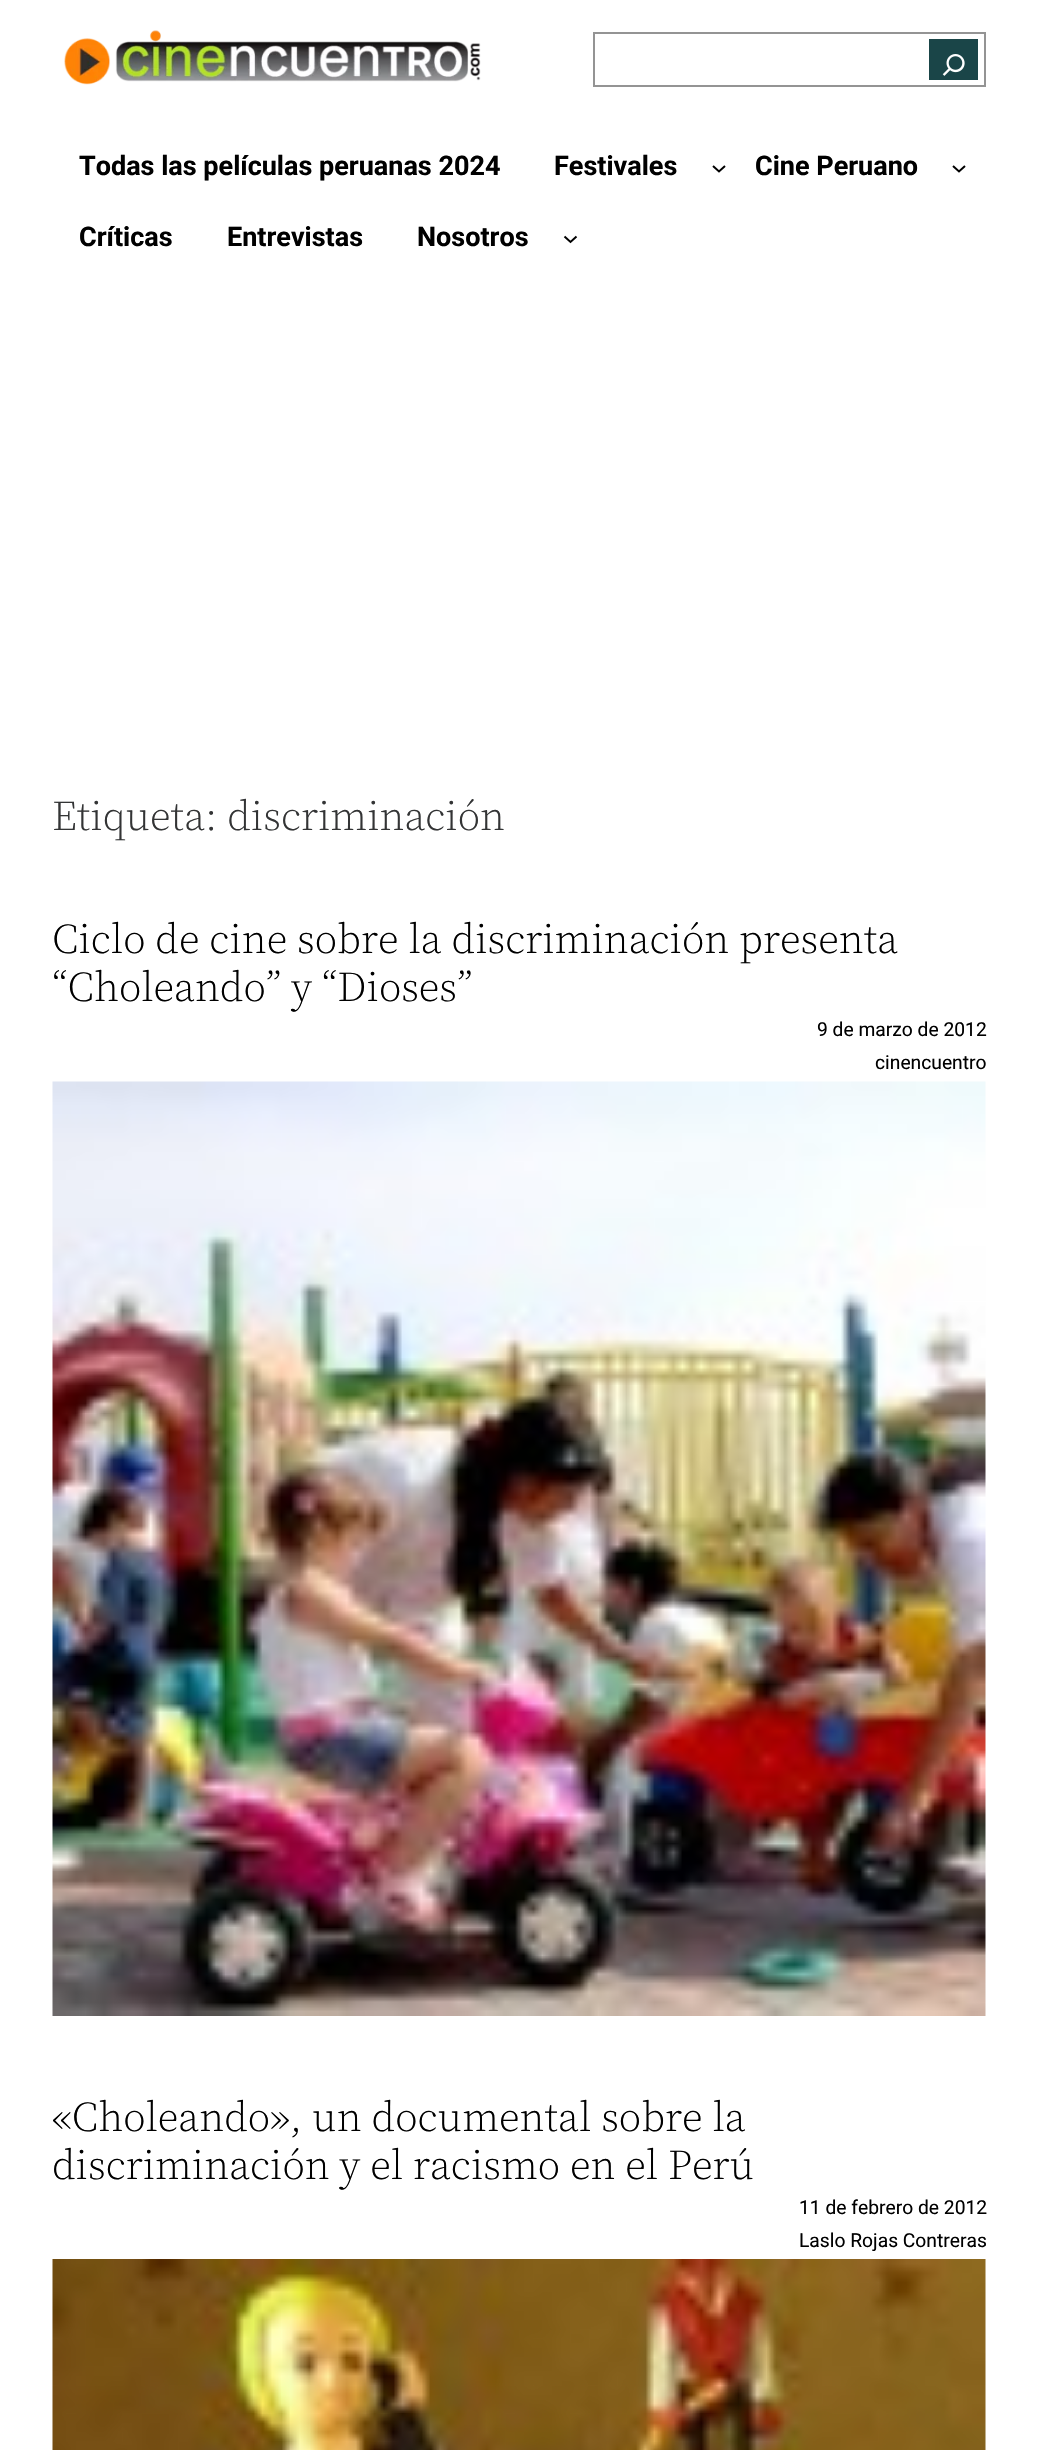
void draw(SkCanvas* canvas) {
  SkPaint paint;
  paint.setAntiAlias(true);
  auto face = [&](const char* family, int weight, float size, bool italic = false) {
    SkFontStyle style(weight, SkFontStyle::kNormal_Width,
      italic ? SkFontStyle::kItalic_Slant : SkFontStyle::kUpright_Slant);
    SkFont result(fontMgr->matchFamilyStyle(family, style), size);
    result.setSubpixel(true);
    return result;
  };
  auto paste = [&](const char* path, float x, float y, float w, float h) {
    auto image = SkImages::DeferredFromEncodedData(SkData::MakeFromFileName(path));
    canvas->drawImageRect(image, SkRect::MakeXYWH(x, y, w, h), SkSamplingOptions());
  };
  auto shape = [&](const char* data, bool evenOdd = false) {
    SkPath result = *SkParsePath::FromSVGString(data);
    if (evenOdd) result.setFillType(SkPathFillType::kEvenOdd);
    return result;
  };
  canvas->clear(0xffffffff);
  paste("img/1.png", 64, 30, 417, 55);
  paint.setStroke(true);
  paint.setStrokeWidth(2);
  paint.setColor(0xff949494);
  canvas->drawRect(SkRect::MakeXYWH(594, 33, 391, 53), paint);
  paint.setStroke(false);
  paint.setColor(0xff1a4548);
  canvas->drawRect(SkRect::MakeXYWH(929, 39, 49, 41), paint);
  paste("img/2.png", 942, 54, 23, 22);
  paint.setStroke(true);
  paint.setColor(0xff000000);
  canvas->drawPath(shape("M713 166L719 171.5L725 166"), paint);
  canvas->drawPath(shape("M953 166L959 171.5L965 166"), paint);
  canvas->drawPath(shape("M564.5 236.5L570.5 242L576.5 236.5"), paint);
  paste("img/3.png", 52, 1081, 934, 935);
  paste("img/4.png", 52, 2259, 934, 191);
  auto f0 = face("Roboto", 700, 27);
  paint.setStroke(false);
  {
    const struct { const char* s; float x, y; } items[] = {
      {"Todas las películas peruanas 2024", 79, 175},
      {"Festivales", 554, 175},
      {"Cine Peruano", 755, 175},
      {"Críticas", 79, 246},
      {"Entrevistas", 227, 246},
      {"Nosotros", 417, 246},
    };
    for (auto [s, x, y] : items) {
      canvas->drawString(s, x, y, f0, paint);
    }
  }
  auto f1 = face("Source Serif 4", 300, 42);
  paint.setColor(0xff333435);
  canvas->drawString("Etiqueta: discriminación", 52, 830, f1, paint);
  paint.setColor(0xff000000);
  canvas->drawString("Ciclo de cine sobre la discriminación presenta", 52, 953, f1, paint);
  canvas->drawString("“Choleando” y “Dioses”", 52, 1001, f1, paint);
  auto f2 = face("Roboto", 400, 19.25f);
  canvas->drawString("9 de marzo de 2012", 817, 1036, f2, paint);
  canvas->drawString("cinencuentro", 875, 1069, f2, paint);
  canvas->drawString("«Choleando», un documental sobre la", 52, 2131, f1, paint);
  canvas->drawString("discriminación y el racismo en el Perú", 52, 2179, f1, paint);
  canvas->drawString("11 de febrero de 2012", 799, 2214, f2, paint);
  canvas->drawString("Laslo Rojas Contreras", 799, 2247, f2, paint);
}
